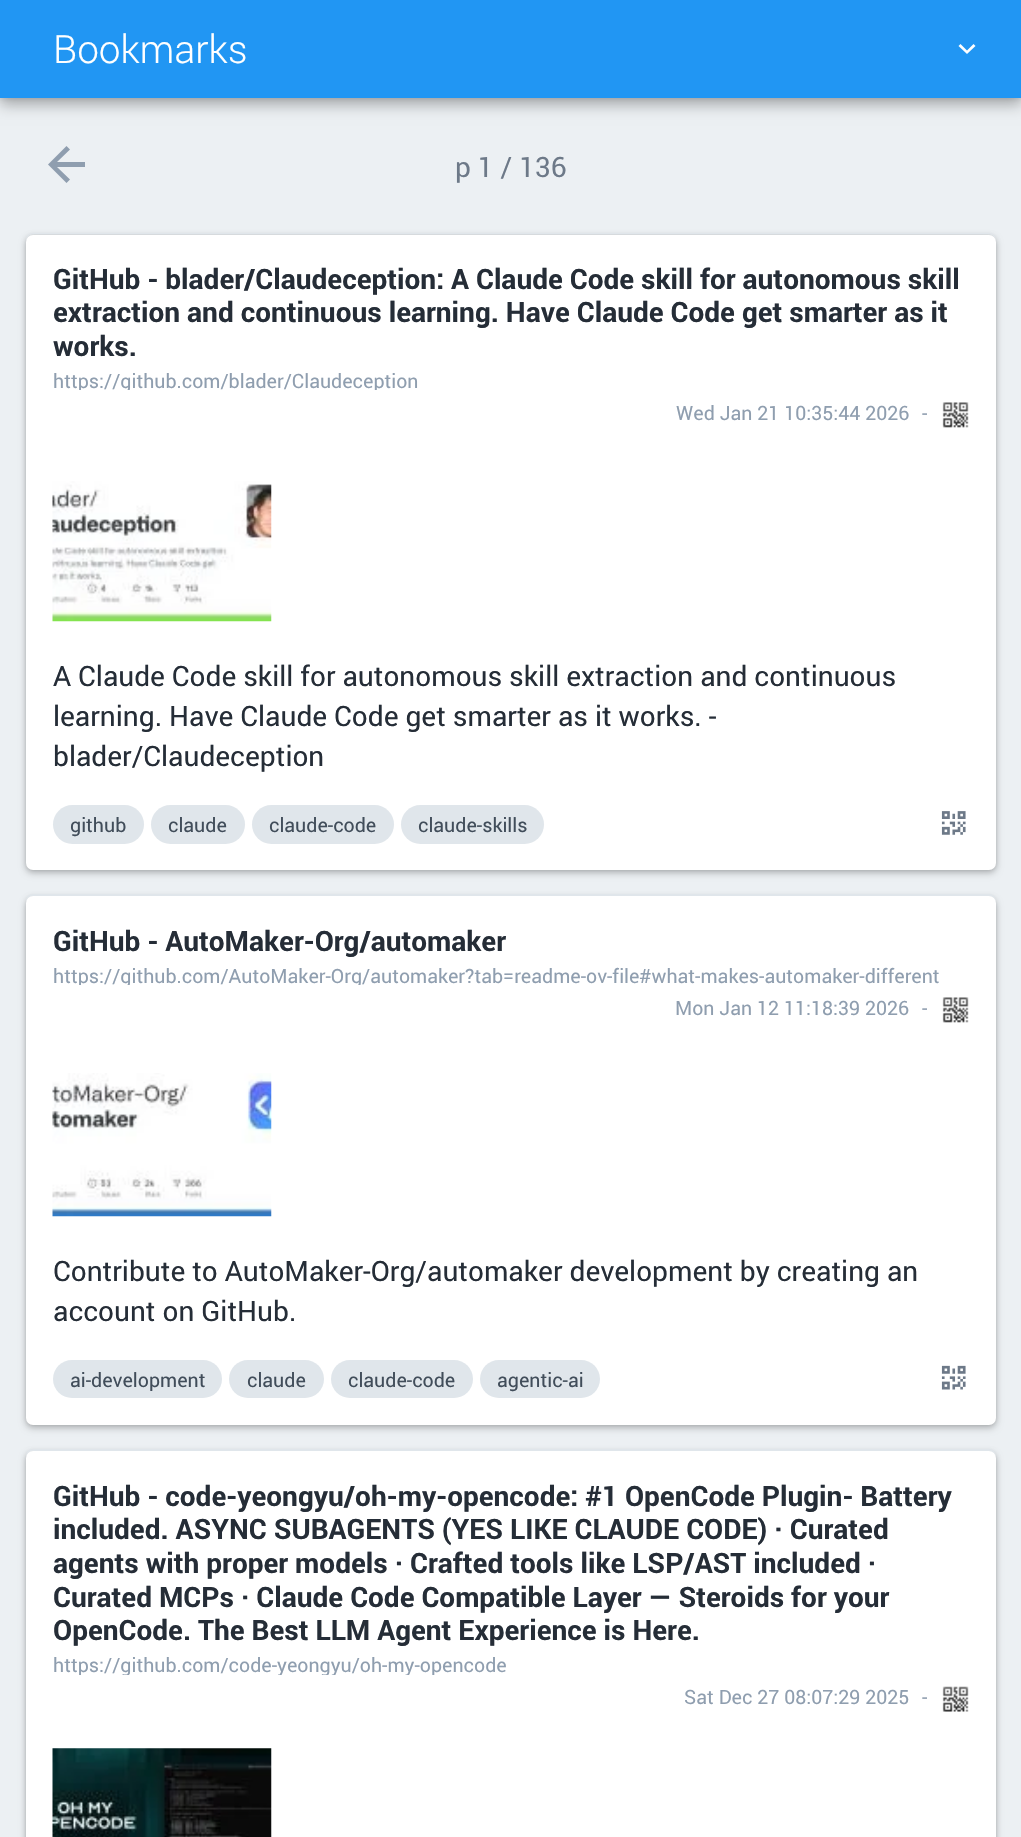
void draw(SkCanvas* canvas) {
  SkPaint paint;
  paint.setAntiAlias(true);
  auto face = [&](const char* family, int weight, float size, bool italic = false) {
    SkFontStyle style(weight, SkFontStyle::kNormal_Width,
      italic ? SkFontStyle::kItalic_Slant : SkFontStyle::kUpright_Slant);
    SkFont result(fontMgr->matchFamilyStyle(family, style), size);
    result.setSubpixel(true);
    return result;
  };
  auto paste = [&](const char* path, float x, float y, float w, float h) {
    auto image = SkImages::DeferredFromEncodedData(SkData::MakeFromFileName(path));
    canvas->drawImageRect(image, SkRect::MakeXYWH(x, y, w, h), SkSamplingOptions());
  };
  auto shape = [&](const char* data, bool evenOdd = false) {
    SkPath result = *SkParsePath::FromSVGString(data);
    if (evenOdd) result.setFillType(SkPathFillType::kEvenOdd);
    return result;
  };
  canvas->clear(0xffecf0f3);
  paint.setColor(0x47000000);
  paint.setMaskFilter(SkMaskFilter::MakeBlur(kNormal_SkBlurStyle, 7));
  canvas->drawRect(SkRect::MakeXYWH(0, 7, 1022, 98), paint);
  paint.setMaskFilter(nullptr);
  paint.setColor(0x24000000);
  paint.setMaskFilter(SkMaskFilter::MakeBlur(kNormal_SkBlurStyle, 3.5f));
  canvas->drawRect(SkRect::MakeXYWH(0, 0, 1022, 98), paint);
  paint.setMaskFilter(nullptr);
  paint.setColor(0xff2196f3);
  canvas->drawRect(SkRect::MakeXYWH(0, 0, 1021, 98), paint);
  paint.setColor(0xffffffff);
  canvas->drawPath(shape("M960.5 44L967 50.5L973.5 44L975.5 46L967 54L958.5 46Z"), paint);
  paint.setColor(0xff8f9eaf);
  canvas->drawPath(shape("M85 162V167H57L70 179.5L66.5 183L48 164.5L66.5 146L70 149.5L57 162Z"), paint);
  paint.setColor(0x3d000000);
  paint.setMaskFilter(SkMaskFilter::MakeBlur(kNormal_SkBlurStyle, 3.5f));
  canvas->drawRoundRect(SkRect::MakeXYWH(26, 238, 970, 635), 7, 7, paint);
  paint.setMaskFilter(nullptr);
  paint.setColor(0x1f000000);
  paint.setMaskFilter(SkMaskFilter::MakeBlur(kNormal_SkBlurStyle, 2));
  canvas->drawRoundRect(SkRect::MakeXYWH(26, 235, 970, 635), 7, 7, paint);
  paint.setMaskFilter(nullptr);
  paint.setColor(0xffe0e6eb);
  canvas->drawPath(shape("M33 233C29 233 26 236 26 240V863V242C26 238 29 234 33 234H989C993 234 996 238 996 242V863V240C996 236 993 233 989 233Z"), paint);
  paint.setColor(0xffffffff);
  canvas->drawRoundRect(SkRect::MakeXYWH(26, 235, 970, 635), 7, 7, paint);
  paste("img/1.png", 942, 402, 27, 26);
  paste("img/2.png", 52, 481, 220, 141);
  paint.setColor(0xffe0e6eb);
  canvas->drawRoundRect(SkRect::MakeXYWH(53, 805, 91, 39), 19.5f, 19.5f, paint);
  canvas->drawRoundRect(SkRect::MakeXYWH(151, 805, 94, 39), 19.5f, 19.5f, paint);
  canvas->drawRoundRect(SkRect::MakeXYWH(252, 805, 142, 39), 19.5f, 19.5f, paint);
  canvas->drawRoundRect(SkRect::MakeXYWH(401, 805, 143, 39), 19.5f, 19.5f, paint);
  paste("img/3.png", 941, 811, 25, 24);
  paint.setColor(0x3d000000);
  paint.setMaskFilter(SkMaskFilter::MakeBlur(kNormal_SkBlurStyle, 3.5f));
  canvas->drawRoundRect(SkRect::MakeXYWH(26, 900, 970, 528), 7, 7, paint);
  paint.setMaskFilter(nullptr);
  paint.setColor(0x1f000000);
  paint.setMaskFilter(SkMaskFilter::MakeBlur(kNormal_SkBlurStyle, 2));
  canvas->drawRoundRect(SkRect::MakeXYWH(26, 896, 970, 529), 7, 7, paint);
  paint.setMaskFilter(nullptr);
  paint.setColor(0xffe0e6eb);
  canvas->drawPath(shape("M33 894C29 894 26 897 26 901V1418V903C26 899 29 896 33 896H989C993 896 996 899 996 903V1418V901C996 897 993 894 989 894Z"), paint);
  paint.setColor(0xffffffff);
  canvas->drawRoundRect(SkRect::MakeXYWH(26, 896, 970, 529), 7, 7, paint);
  paste("img/1.png", 942, 997, 27, 26);
  paste("img/4.png", 52, 1073, 220, 144);
  paint.setColor(0xffe0e6eb);
  canvas->drawRoundRect(SkRect::MakeXYWH(53, 1360, 169, 38), 19, 19, paint);
  canvas->drawRoundRect(SkRect::MakeXYWH(229, 1360, 95, 38), 19, 19, paint);
  canvas->drawRoundRect(SkRect::MakeXYWH(331, 1360, 142, 38), 19, 19, paint);
  canvas->drawRoundRect(SkRect::MakeXYWH(480, 1360, 120, 38), 19, 19, paint);
  paste("img/5.png", 941, 1365, 25, 25);
  paint.setColor(0x3d000000);
  paint.setMaskFilter(SkMaskFilter::MakeBlur(kNormal_SkBlurStyle, 3.5f));
  canvas->drawRoundRect(SkRect::MakeXYWH(26, 1454, 970, 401), 7, 7, paint);
  paint.setMaskFilter(nullptr);
  paint.setColor(0x1f000000);
  paint.setMaskFilter(SkMaskFilter::MakeBlur(kNormal_SkBlurStyle, 2));
  canvas->drawRoundRect(SkRect::MakeXYWH(26, 1451, 970, 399), 7, 7, paint);
  paint.setMaskFilter(nullptr);
  paint.setColor(0xffe0e6eb);
  canvas->drawPath(shape("M33 1449C29 1449 26 1452 26 1456V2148V1458C26 1454 29 1451 33 1451H989C993 1451 996 1454 996 1458V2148V1456C996 1452 993 1449 989 1449Z"), paint);
  paint.setColor(0xffffffff);
  canvas->drawRoundRect(SkRect::MakeXYWH(26, 1451, 970, 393), 7, 7, paint);
  paste("img/6.png", 942, 1686, 27, 26);
  paste("img/7.png", 52, 1748, 220, 89);
  auto f0 = face("Roboto", 300, 39);
  canvas->drawString("Bookmarks", 53, 63, f0, paint);
  auto f1 = face("Roboto", 400, 28);
  paint.setColor(0xff6d7988);
  canvas->drawString("p 1 / 136", 455, 177, f1, paint);
  auto f2 = face("Roboto", 700, 28);
  paint.setColor(0xff252d37);
  {
    const struct { const char* s; float x, y; } items[] = {
      {"GitHub - blader/Claudeception: A Claude Code skill for autonomous skill", 53, 289},
      {"extraction and continuous learning. Have Claude Code get smarter as it", 53, 322},
      {"works.", 53, 356},
    };
    for (auto [s, x, y] : items) {
      canvas->drawString(s, x, y, f2, paint);
    }
  }
  canvas->save();
  canvas->clipRect(SkRect::MakeXYWH(53, 371, 917, 19));
  auto f3 = face("Roboto", 400, 19.6f);
  paint.setColor(0xff8f9eaf);
  canvas->drawString("https://github.com/blader/Claudeception", 53, 388, f3, paint);
  canvas->restore();
  canvas->drawString("Wed Jan 21 10:35:44 2026", 676, 420, f3, paint);
  canvas->drawString("-", 922, 420, f3, paint);
  paint.setColor(0xff252d37);
  {
    const struct { const char* s; float x, y; } items[] = {
      {"A Claude Code skill for autonomous skill extraction and continuous", 53, 686},
      {"learning. Have Claude Code get smarter as it works. -", 53, 726},
      {"blader/Claudeception", 53, 766},
    };
    for (auto [s, x, y] : items) {
      canvas->drawString(s, x, y, f1, paint);
    }
  }
  paint.setColor(0xff414d5a);
  {
    const struct { const char* s; float x, y; } items[] = {
      {"github", 70, 832},
      {"claude", 168, 832},
      {"claude-code", 269, 832},
      {"claude-skills", 418, 832},
    };
    for (auto [s, x, y] : items) {
      canvas->drawString(s, x, y, f3, paint);
    }
  }
  paint.setColor(0xff252d37);
  canvas->drawString("GitHub - AutoMaker-Org/automaker", 53, 951, f2, paint);
  canvas->save();
  canvas->clipRect(SkRect::MakeXYWH(53, 966, 917, 19));
  paint.setColor(0xff8f9eaf);
  canvas->drawString("https://github.com/AutoMaker-Org/automaker?tab=readme-ov-file#what-makes-automaker-different", 53, 983, f3, paint);
  canvas->restore();
  canvas->drawString("Mon Jan 12 11:18:39 2026", 675, 1015, f3, paint);
  canvas->drawString("-", 922, 1015, f3, paint);
  paint.setColor(0xff252d37);
  canvas->drawString("Contribute to AutoMaker-Org/automaker development by creating an", 53, 1281, f1, paint);
  canvas->drawString("account on GitHub.", 53, 1321, f1, paint);
  paint.setColor(0xff414d5a);
  {
    const struct { const char* s; float x, y; } items[] = {
      {"ai-development", 70, 1387},
      {"claude", 247, 1387},
      {"claude-code", 348, 1387},
      {"agentic-ai", 497, 1387},
    };
    for (auto [s, x, y] : items) {
      canvas->drawString(s, x, y, f3, paint);
    }
  }
  paint.setColor(0xff252d37);
  {
    const struct { const char* s; float x, y; } items[] = {
      {"GitHub - code-yeongyu/oh-my-opencode: #1 OpenCode Plugin- Battery", 53, 1506},
      {"included. ASYNC SUBAGENTS (YES LIKE CLAUDE CODE) · Curated", 53, 1539},
      {"agents with proper models · Crafted tools like LSP/AST included ·", 53, 1573},
      {"Curated MCPs · Claude Code Compatible Layer — Steroids for your", 53, 1607},
      {"OpenCode. The Best LLM Agent Experience is Here.", 53, 1640},
    };
    for (auto [s, x, y] : items) {
      canvas->drawString(s, x, y, f2, paint);
    }
  }
  canvas->save();
  canvas->clipRect(SkRect::MakeXYWH(53, 1654, 917, 21));
  paint.setColor(0xff8f9eaf);
  canvas->drawString("https://github.com/code-yeongyu/oh-my-opencode", 53, 1672, f3, paint);
  canvas->restore();
  canvas->drawString("Sat Dec 27 08:07:29 2025", 684, 1704, f3, paint);
  canvas->drawString("-", 922, 1704, f3, paint);
}
